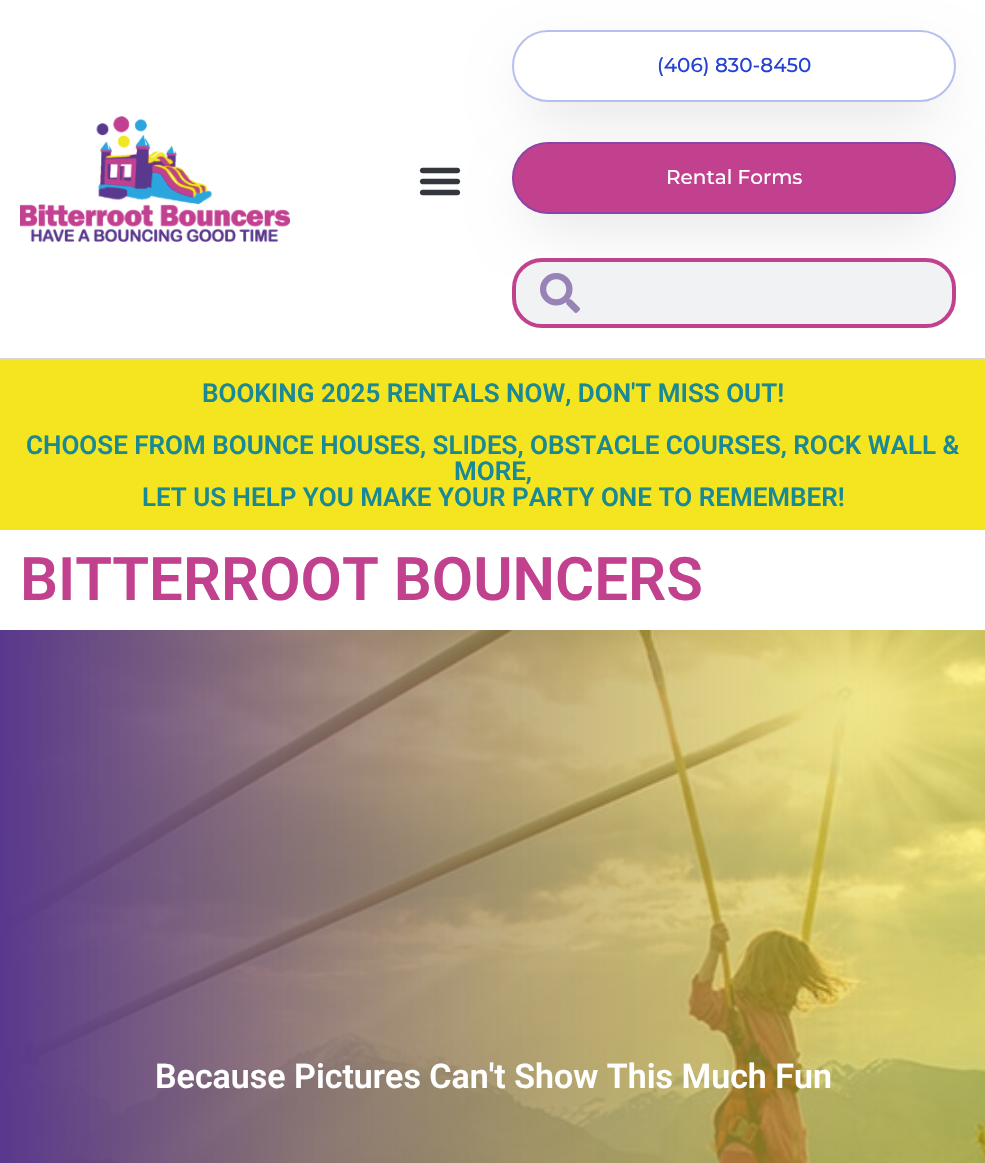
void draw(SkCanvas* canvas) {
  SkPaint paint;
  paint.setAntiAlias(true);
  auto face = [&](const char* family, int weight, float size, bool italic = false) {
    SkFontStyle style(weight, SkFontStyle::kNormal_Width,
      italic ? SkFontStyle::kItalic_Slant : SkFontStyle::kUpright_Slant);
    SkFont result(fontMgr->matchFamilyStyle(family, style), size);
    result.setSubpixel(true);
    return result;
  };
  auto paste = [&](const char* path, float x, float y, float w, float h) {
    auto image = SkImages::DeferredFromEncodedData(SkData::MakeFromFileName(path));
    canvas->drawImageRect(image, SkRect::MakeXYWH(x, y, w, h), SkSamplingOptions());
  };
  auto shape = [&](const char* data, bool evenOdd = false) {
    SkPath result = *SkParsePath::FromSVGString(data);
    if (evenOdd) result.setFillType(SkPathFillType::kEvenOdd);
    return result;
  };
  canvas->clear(0xffffffff);
  paint.setColor(0xffd6d6d6);
  canvas->drawRect(SkRect::MakeXYWH(0, 358, 985, 2), paint);
  paste("img/1.png", 20, 116, 270, 126);
  paste("img/2.png", 419, 167, 42, 29);
  canvas->save();
  canvas->clipPath(shape("M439 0H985V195H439ZM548 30H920C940 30 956 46 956 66C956 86 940 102 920 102H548C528 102 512 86 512 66C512 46 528 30 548 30Z", true), true);
  paint.setColor(0x29000000);
  paint.setMaskFilter(SkMaskFilter::MakeBlur(kNormal_SkBlurStyle, 30));
  canvas->drawRoundRect(SkRect::MakeXYWH(530, 68, 408, 36), 18, 18, paint);
  paint.setMaskFilter(nullptr);
  canvas->restore();
  paint.setStroke(true);
  paint.setStrokeWidth(2);
  paint.setColor(0x572642d3);
  canvas->drawRoundRect(SkRect::MakeXYWH(513, 31, 442, 70), 35, 35, paint);
  paint.setStroke(false);
  paint.setColor(0x29000000);
  paint.setMaskFilter(SkMaskFilter::MakeBlur(kNormal_SkBlurStyle, 30));
  canvas->drawRoundRect(SkRect::MakeXYWH(530, 180, 408, 36), 18, 18, paint);
  paint.setMaskFilter(nullptr);
  paint.setColor(0xffc2418f);
  canvas->drawRoundRect(SkRect::MakeXYWH(512, 142, 444, 72), 36, 36, paint);
  paint.setStroke(true);
  paint.setColor(0x572642d3);
  canvas->drawRoundRect(SkRect::MakeXYWH(513, 143, 442, 70), 35, 35, paint);
  paint.setStroke(false);
  paint.setColor(0xfff1f2f3);
  canvas->drawRoundRect(SkRect::MakeXYWH(514, 260, 440, 66), 28, 28, paint);
  paint.setStroke(true);
  paint.setStrokeWidth(4);
  paint.setColor(0xffc2418f);
  canvas->drawRoundRect(SkRect::MakeXYWH(514, 260, 440, 66), 28, 28, paint);
  paste("img/3.png", 540, 273, 40, 40);
  paint.setStroke(false);
  paint.setColor(0xfff5e520);
  canvas->drawRect(SkRect::MakeXYWH(0, 360, 985, 170), paint);
  paste("img/4.png", 0, 630, 985, 533);
  auto f0 = face("Montserrat", 500, 20);
  paint.setColor(0xff2642d3);
  canvas->drawString("(406) 830-8450", 657, 72, f0, paint);
  paint.setColor(0xffffffff);
  canvas->drawString("Rental Forms", 666, 184, f0, paint);
  auto f1 = face("Roboto", 600, 26);
  paint.setColor(0xff1b8994);
  {
    const struct { const char* s; float x, y; } items[] = {
      {"BOOKING 2025 RENTALS NOW, DON'T MISS OUT!", 202, 402},
      {"CHOOSE FROM BOUNCE HOUSES, SLIDES, OBSTACLE COURSES, ROCK WALL &", 26, 454},
      {"MORE,", 454, 480},
      {"LET US HELP YOU MAKE YOUR PARTY ONE TO REMEMBER!", 142, 506},
    };
    for (auto [s, x, y] : items) {
      canvas->drawString(s, x, y, f1, paint);
    }
  }
  auto f2 = face("Roboto", 600, 60);
  paint.setColor(0xffc2418f);
  canvas->drawString("BITTERROOT BOUNCERS", 20, 600, f2, paint);
  auto f3 = face("Roboto", 600, 34);
  paint.setColor(0xffffffff);
  canvas->drawString("Because Pictures Can't Show This Much Fun", 155, 1088, f3, paint);
}
